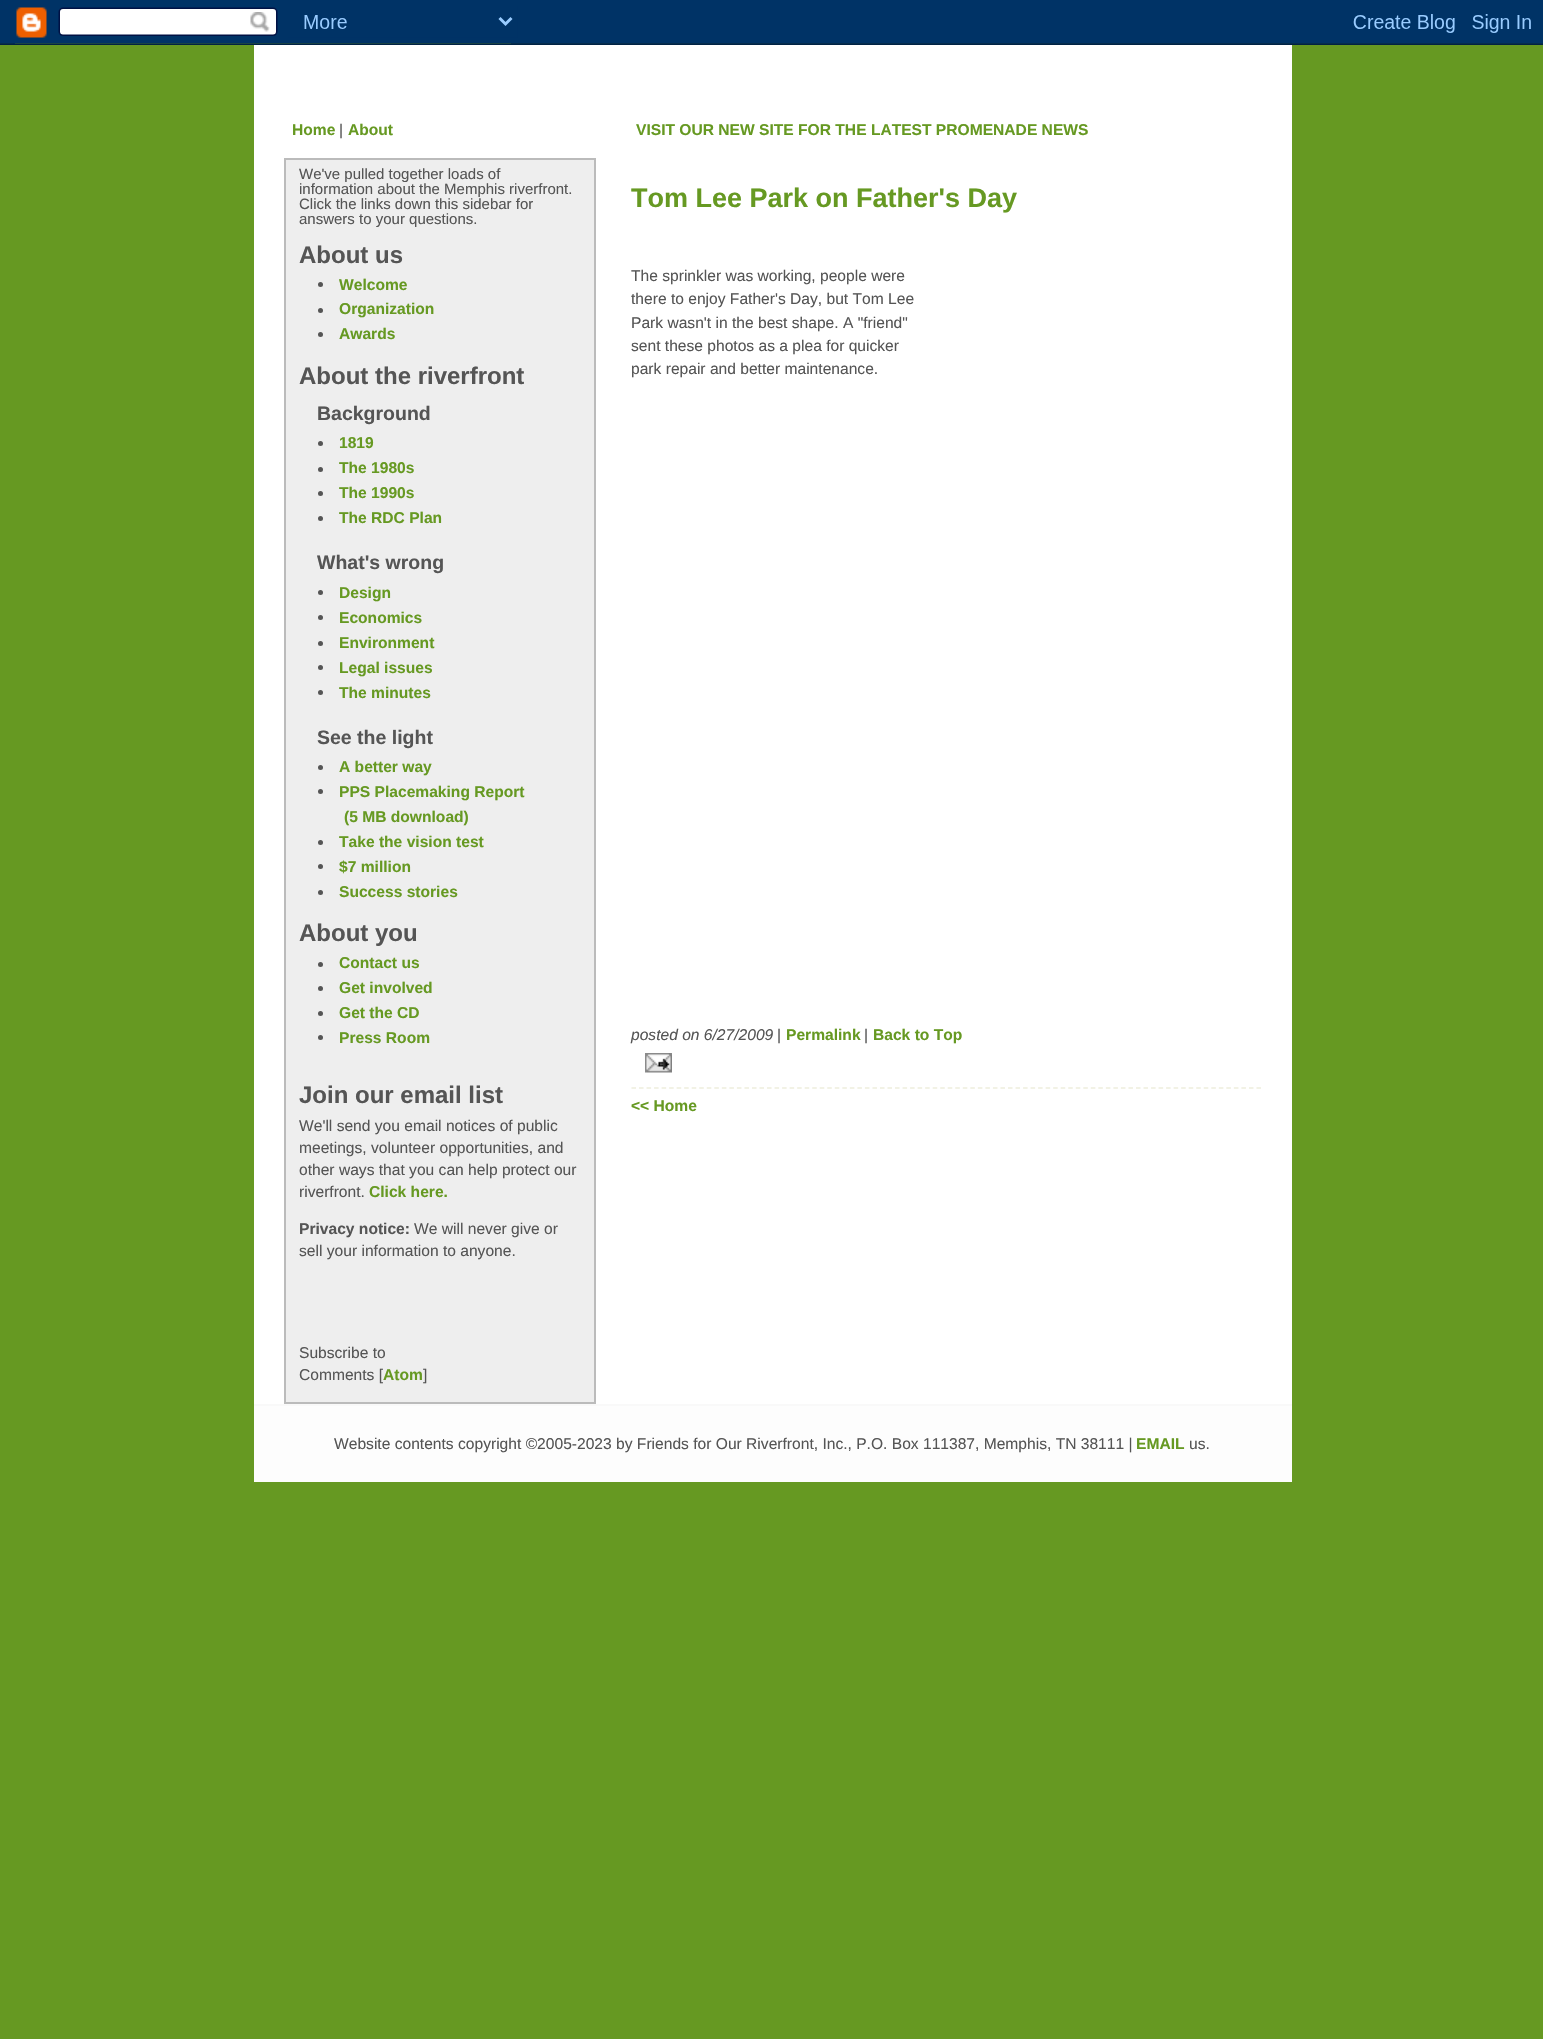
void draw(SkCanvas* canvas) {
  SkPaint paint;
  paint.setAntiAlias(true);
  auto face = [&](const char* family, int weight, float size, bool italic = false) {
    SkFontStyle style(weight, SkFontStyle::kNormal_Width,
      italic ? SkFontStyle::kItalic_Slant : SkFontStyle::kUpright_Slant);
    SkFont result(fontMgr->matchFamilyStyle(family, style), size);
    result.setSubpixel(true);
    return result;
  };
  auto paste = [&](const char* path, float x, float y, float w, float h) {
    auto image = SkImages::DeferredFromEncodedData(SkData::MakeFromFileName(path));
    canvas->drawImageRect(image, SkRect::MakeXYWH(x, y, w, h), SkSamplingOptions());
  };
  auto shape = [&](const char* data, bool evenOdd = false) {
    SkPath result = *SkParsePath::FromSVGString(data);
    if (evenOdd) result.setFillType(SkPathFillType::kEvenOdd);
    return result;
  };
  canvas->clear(0xff669922);
  paste("img/1.png", 0, 0, 1543, 45);
  paint.setColor(0xffffffff);
  canvas->drawRect(SkRect::MakeXYWH(254, 45, 1038, 1359), paint);
  paint.setColor(0xffeeeeee);
  canvas->drawRect(SkRect::MakeXYWH(285, 159, 310, 1244), paint);
  paint.setStroke(true);
  paint.setStrokeWidth(2);
  paint.setColor(0xffbbbbbb);
  canvas->drawRect(SkRect::MakeXYWH(285, 159, 310, 1244), paint);
  paint.setStroke(false);
  paint.setColor(0xff555555);
  canvas->drawCircle(320.5f, 284.5f, 2.5f, paint);
  canvas->drawCircle(320.5f, 310.5f, 2.5f, paint);
  canvas->drawCircle(320.5f, 334.5f, 2.5f, paint);
  canvas->drawCircle(320.5f, 443.5f, 2.5f, paint);
  canvas->drawCircle(320.5f, 469.5f, 2.5f, paint);
  canvas->drawCircle(320.5f, 493.5f, 2.5f, paint);
  canvas->drawCircle(320.5f, 518.5f, 2.5f, paint);
  canvas->drawCircle(320.5f, 592.5f, 2.5f, paint);
  canvas->drawCircle(320.5f, 617.5f, 2.5f, paint);
  canvas->drawCircle(320.5f, 643.5f, 2.5f, paint);
  canvas->drawCircle(320.5f, 667.5f, 2.5f, paint);
  canvas->drawCircle(320.5f, 692.5f, 2.5f, paint);
  canvas->drawCircle(320.5f, 767.5f, 2.5f, paint);
  canvas->drawCircle(320.5f, 791.5f, 2.5f, paint);
  canvas->drawCircle(320.5f, 842.5f, 2.5f, paint);
  canvas->drawCircle(320.5f, 866.5f, 2.5f, paint);
  canvas->drawCircle(320.5f, 892.5f, 2.5f, paint);
  canvas->drawCircle(320.5f, 964.5f, 2.5f, paint);
  canvas->drawCircle(320.5f, 988.5f, 2.5f, paint);
  canvas->drawCircle(320.5f, 1013.5f, 2.5f, paint);
  canvas->drawCircle(320.5f, 1037.5f, 2.5f, paint);
  paste("img/2.png", 645, 1053, 27, 20);
  paint.setStroke(true);
  paint.setStrokeWidth(1.5f);
  paint.setColor(0xffeeeedd);
  paint.setPathEffect(SkDashPathEffect::Make({{4.5f, 3.03f}}, 0));
  canvas->drawPath(shape("M631.5 1088H1261.5"), paint);
  paint.setPathEffect(nullptr);
  paint.setStroke(false);
  paint.setColor(0xfffdfdfd);
  canvas->drawRect(SkRect::MakeXYWH(254, 1406, 1038, 76), paint);
  paint.setColor(0xfff9f9f9);
  canvas->drawRect(SkRect::MakeXYWH(254, 1404, 1038, 2), paint);
  auto f0 = face("Liberation Sans", 700, 15.6f);
  paint.setColor(0xff669922);
  canvas->drawString("Home", 292, 135, f0, paint);
  auto f1 = face("Liberation Sans", 400, 15.6f);
  paint.setColor(0xff555555);
  canvas->drawString("|", 339, 135, f1, paint);
  paint.setColor(0xff669922);
  canvas->drawString("About", 348, 135, f0, paint);
  canvas->drawString("VISIT OUR NEW SITE FOR THE LATEST PROMENADE NEWS", 636, 135, f0, paint);
  auto f2 = face("Liberation Sans", 400, 15);
  paint.setColor(0xff555555);
  {
    const struct { const char* s; float x, y; } items[] = {
      {"We've pulled together loads of", 299, 179},
      {"information about the Memphis riverfront.", 299, 194},
      {"Click the links down this sidebar for", 299, 209},
      {"answers to your questions.", 299, 224},
    };
    for (auto [s, x, y] : items) {
      canvas->drawString(s, x, y, f2, paint);
    }
  }
  auto f3 = face("Liberation Sans", 700, 24);
  canvas->drawString("About us", 299, 263, f3, paint);
  paint.setColor(0xff669922);
  {
    const struct { const char* s; float x, y; } items[] = {
      {"Welcome", 339, 290},
      {"Organization", 339, 314},
      {"Awards", 339, 339},
    };
    for (auto [s, x, y] : items) {
      canvas->drawString(s, x, y, f0, paint);
    }
  }
  paint.setColor(0xff555555);
  canvas->drawString("About the riverfront", 299, 384, f3, paint);
  auto f4 = face("Liberation Sans", 700, 19.5f);
  canvas->drawString("Background", 317, 420, f4, paint);
  paint.setColor(0xff669922);
  {
    const struct { const char* s; float x, y; } items[] = {
      {"1819", 339, 448},
      {"The 1980s", 339, 473},
      {"The 1990s", 339, 498},
      {"The RDC Plan", 339, 523},
    };
    for (auto [s, x, y] : items) {
      canvas->drawString(s, x, y, f0, paint);
    }
  }
  paint.setColor(0xff555555);
  canvas->drawString("What's wrong", 317, 569, f4, paint);
  paint.setColor(0xff669922);
  {
    const struct { const char* s; float x, y; } items[] = {
      {"Design", 339, 598},
      {"Economics", 339, 623},
      {"Environment", 339, 648},
      {"Legal issues", 339, 673},
      {"The minutes", 339, 698},
    };
    for (auto [s, x, y] : items) {
      canvas->drawString(s, x, y, f0, paint);
    }
  }
  paint.setColor(0xff555555);
  canvas->drawString("See the light", 317, 744, f4, paint);
  paint.setColor(0xff669922);
  {
    const struct { const char* s; float x, y; } items[] = {
      {"A better way", 339, 772},
      {"PPS Placemaking Report", 339, 797},
      {"(5 MB download)", 344, 822},
      {"Take the vision test", 339, 847},
      {"$7 million", 339, 872},
      {"Success stories", 339, 897},
    };
    for (auto [s, x, y] : items) {
      canvas->drawString(s, x, y, f0, paint);
    }
  }
  paint.setColor(0xff555555);
  canvas->drawString("About you", 299, 941, f3, paint);
  paint.setColor(0xff669922);
  {
    const struct { const char* s; float x, y; } items[] = {
      {"Contact us", 339, 968},
      {"Get involved", 339, 993},
      {"Get the CD", 339, 1018},
      {"Press Room", 339, 1043},
    };
    for (auto [s, x, y] : items) {
      canvas->drawString(s, x, y, f0, paint);
    }
  }
  paint.setColor(0xff555555);
  canvas->drawString("Join our email list", 299, 1103, f3, paint);
  {
    const struct { const char* s; float x, y; } items[] = {
      {"We'll send you email notices of public", 299, 1131},
      {"meetings, volunteer opportunities, and", 299, 1153},
      {"other ways that you can help protect our", 299, 1175},
      {"riverfront.", 299, 1197},
    };
    for (auto [s, x, y] : items) {
      canvas->drawString(s, x, y, f1, paint);
    }
  }
  paint.setColor(0xff669922);
  canvas->drawString("Click here.", 369, 1197, f0, paint);
  paint.setColor(0xff555555);
  canvas->drawString("Privacy notice:", 299, 1234, f0, paint);
  {
    const struct { const char* s; float x, y; } items[] = {
      {"We will never give or", 414, 1234},
      {"sell your information to anyone.", 299, 1256},
      {"Subscribe to", 299, 1358},
      {"Comments [", 299, 1380},
    };
    for (auto [s, x, y] : items) {
      canvas->drawString(s, x, y, f1, paint);
    }
  }
  paint.setColor(0xff669922);
  canvas->drawString("Atom", 383, 1380, f0, paint);
  paint.setColor(0xff555555);
  canvas->drawString("]", 423, 1380, f1, paint);
  auto f5 = face("Liberation Sans", 700, 27);
  paint.setColor(0xff669922);
  canvas->drawString("Tom Lee Park on Father's Day", 631, 207, f5, paint);
  paint.setColor(0xff555555);
  {
    const struct { const char* s; float x, y; } items[] = {
      {"The sprinkler was working, people were", 631, 281},
      {"there to enjoy Father's Day, but Tom Lee", 631, 304},
      {"Park wasn't in the best shape. A \"friend\"", 631, 328},
      {"sent these photos as a plea for quicker", 631, 351},
      {"park repair and better maintenance.", 631, 374},
    };
    for (auto [s, x, y] : items) {
      canvas->drawString(s, x, y, f1, paint);
    }
  }
  auto f6 = face("Liberation Sans", 400, 15.6f, true);
  canvas->drawString("posted on 6/27/2009", 631, 1040, f6, paint);
  canvas->drawString("|", 777, 1040, f1, paint);
  paint.setColor(0xff669922);
  canvas->drawString("Permalink", 786, 1040, f0, paint);
  paint.setColor(0xff555555);
  canvas->drawString("|", 864, 1040, f1, paint);
  paint.setColor(0xff669922);
  canvas->drawString("Back to Top", 873, 1040, f0, paint);
  canvas->drawString("<< Home", 631, 1111, f0, paint);
  paint.setColor(0xff555555);
  canvas->drawString("Website contents copyright ©2005-2023 by Friends for Our Riverfront, Inc., P.O. Box 111387, Memphis, TN 38111 |", 334, 1449, f1, paint);
  paint.setColor(0xff669922);
  canvas->drawString("EMAIL", 1136, 1449, f0, paint);
  paint.setColor(0xff555555);
  canvas->drawString("us.", 1189, 1449, f1, paint);
}
